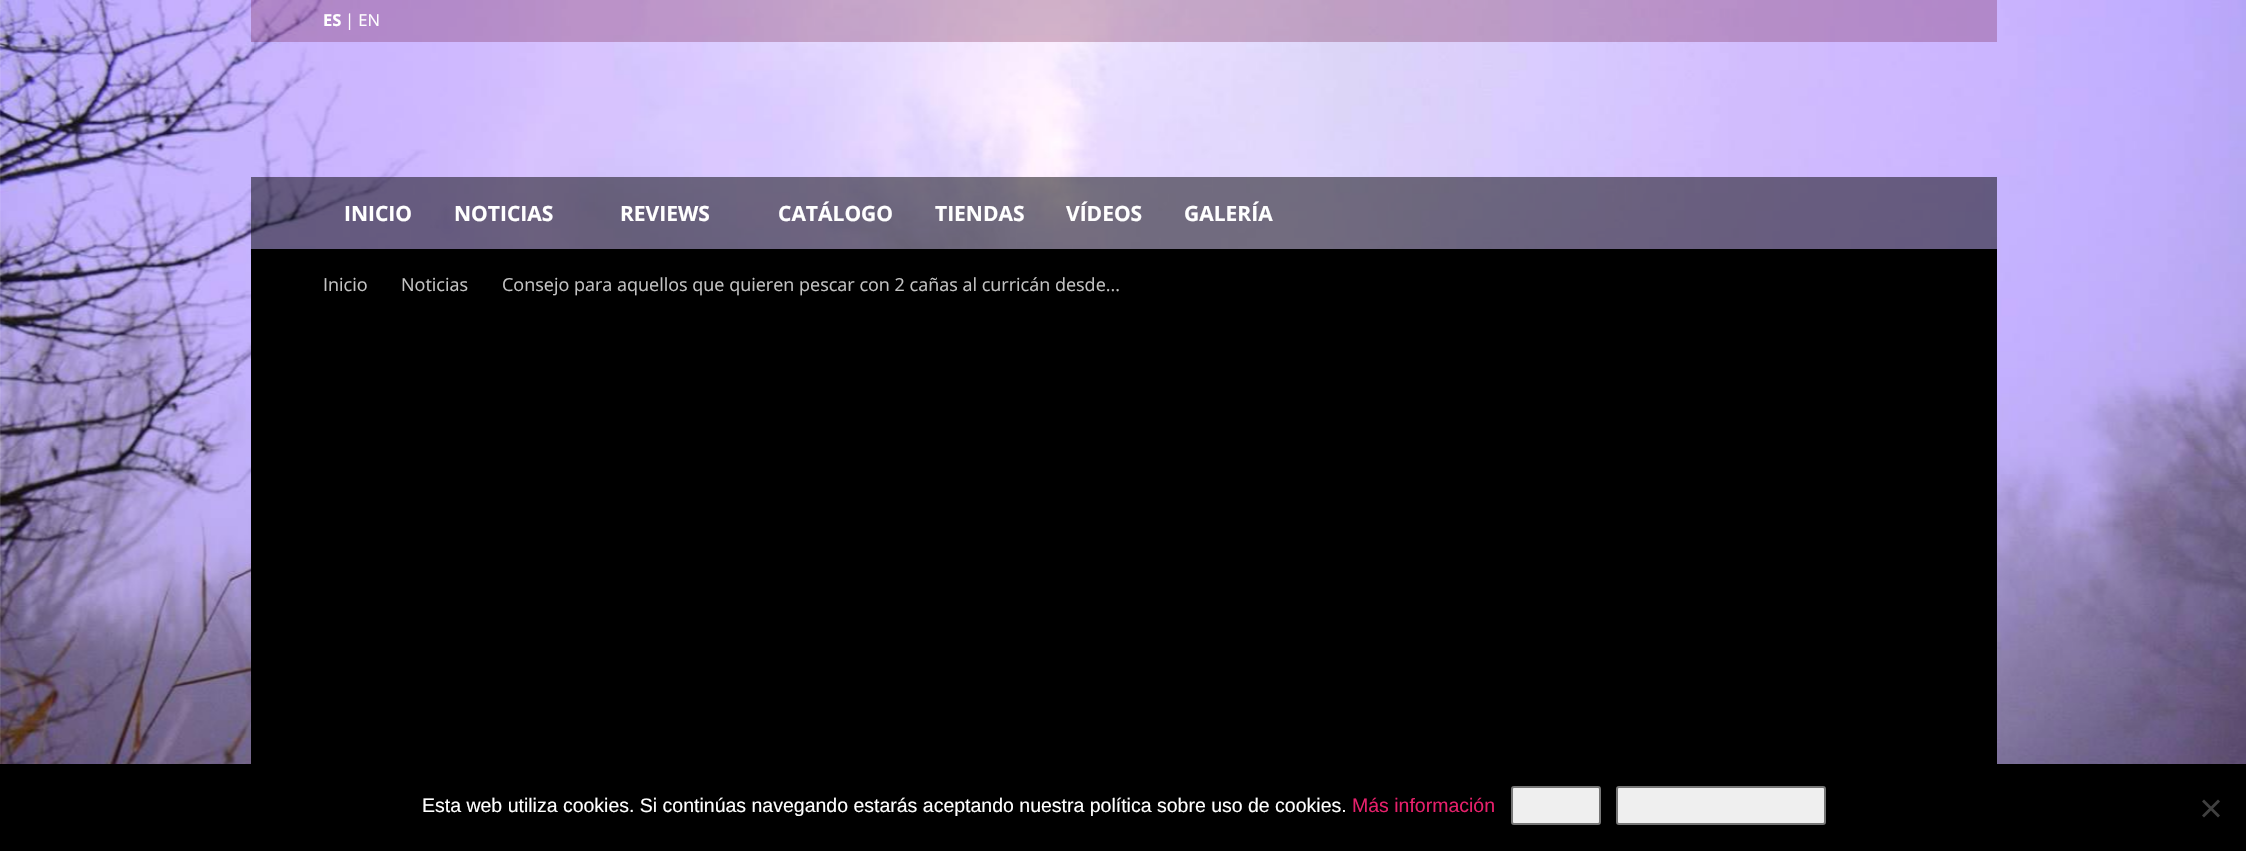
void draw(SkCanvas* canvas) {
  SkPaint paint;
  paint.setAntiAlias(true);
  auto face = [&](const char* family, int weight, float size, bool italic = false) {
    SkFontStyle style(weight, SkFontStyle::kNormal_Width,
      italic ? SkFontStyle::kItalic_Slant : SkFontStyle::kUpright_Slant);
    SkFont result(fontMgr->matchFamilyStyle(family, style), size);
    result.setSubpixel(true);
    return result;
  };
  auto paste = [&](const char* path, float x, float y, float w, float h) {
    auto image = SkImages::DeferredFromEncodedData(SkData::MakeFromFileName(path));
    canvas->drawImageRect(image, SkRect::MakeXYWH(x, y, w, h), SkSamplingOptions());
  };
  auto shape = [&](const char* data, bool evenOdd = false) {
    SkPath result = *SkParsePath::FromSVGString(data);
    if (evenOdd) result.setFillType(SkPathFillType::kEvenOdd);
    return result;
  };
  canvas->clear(0xffffffff);
  paste("img/1.png", 0, 0, 2246, 764);
  paint.setColor(0x40630029);
  canvas->drawRect(SkRect::MakeXYWH(251, 0, 1746, 42), paint);
  paint.setColor(0x80000000);
  canvas->drawRect(SkRect::MakeXYWH(251, 177, 1746, 72), paint);
  paste("img/2.png", 250, 249, 1, 6);
  paint.setColor(0xff000000);
  canvas->drawRect(SkRect::MakeXYWH(251, 249, 1746, 515), paint);
  canvas->drawRect(SkRect::MakeXYWH(0, 764, 2246, 87), paint);
  paint.setColor(0xffefefef);
  canvas->drawRoundRect(SkRect::MakeXYWH(1512, 787, 88, 37), 2, 2, paint);
  paint.setStroke(true);
  paint.setStrokeWidth(2);
  paint.setColor(0xff767676);
  canvas->drawRoundRect(SkRect::MakeXYWH(1512, 787, 88, 37), 2, 2, paint);
  paint.setStroke(false);
  paint.setColor(0xffefefef);
  canvas->drawRoundRect(SkRect::MakeXYWH(1617, 787, 208, 37), 2, 2, paint);
  paint.setStroke(true);
  paint.setColor(0xff767676);
  canvas->drawRoundRect(SkRect::MakeXYWH(1617, 787, 208, 37), 2, 2, paint);
  paint.setStroke(false);
  paint.setColor(0xff404040);
  canvas->drawPath(shape("M2218 799.5L2220 801.5L2204 817.5L2202 815.5Z"), paint);
  canvas->drawPath(shape("M2202 801.5L2204 799.5L2220 815.5L2218 817.5Z"), paint);
  auto f0 = face("Open Sans", 700, 16.5f);
  paint.setColor(0xffffffff);
  canvas->drawString("ES", 323, 26, f0, paint);
  auto f1 = face("Open Sans", 400, 16.5f);
  canvas->drawString("| EN", 345, 26, f1, paint);
  auto f2 = face("Open Sans", 700, 21);
  {
    const struct { const char* s; float x, y; } items[] = {
      {"INICIO", 344, 221},
      {"NOTICIAS", 454, 221},
      {"REVIEWS", 620, 221},
      {"CATÁLOGO", 778, 221},
      {"TIENDAS", 935, 221},
      {"VÍDEOS", 1066, 221},
      {"GALERÍA", 1184, 221},
    };
    for (auto [s, x, y] : items) {
      canvas->drawString(s, x, y, f2, paint);
    }
  }
  auto f3 = face("Open Sans", 400, 18);
  paint.setColor(0xffc3c3c3);
  {
    const struct { const char* s; float x, y; } items[] = {
      {"Inicio", 323, 291},
      {"Noticias", 401, 291},
      {"Consejo para aquellos que quieren pescar con 2 cañas al curricán desde...", 502, 291},
    };
    for (auto [s, x, y] : items) {
      canvas->drawString(s, x, y, f3, paint);
    }
  }
  auto f4 = face("Liberation Sans", 400, 19.5f);
  paint.setColor(0xffffffff);
  canvas->drawString("Esta web utiliza cookies. Si continúas navegando estarás aceptando nuestra política sobre uso de cookies.", 422, 812, f4, paint);
  paint.setColor(0xffe6206b);
  canvas->drawString("Más información", 1352, 812, f4, paint);
}
